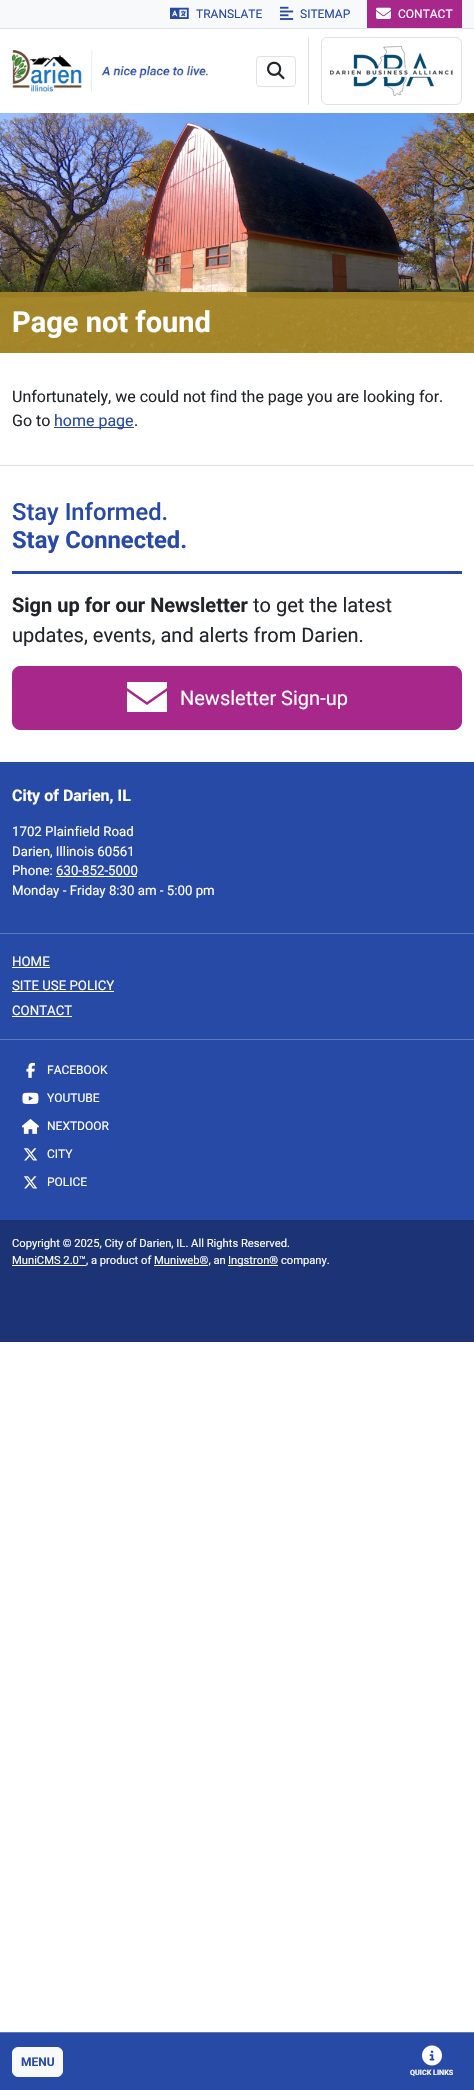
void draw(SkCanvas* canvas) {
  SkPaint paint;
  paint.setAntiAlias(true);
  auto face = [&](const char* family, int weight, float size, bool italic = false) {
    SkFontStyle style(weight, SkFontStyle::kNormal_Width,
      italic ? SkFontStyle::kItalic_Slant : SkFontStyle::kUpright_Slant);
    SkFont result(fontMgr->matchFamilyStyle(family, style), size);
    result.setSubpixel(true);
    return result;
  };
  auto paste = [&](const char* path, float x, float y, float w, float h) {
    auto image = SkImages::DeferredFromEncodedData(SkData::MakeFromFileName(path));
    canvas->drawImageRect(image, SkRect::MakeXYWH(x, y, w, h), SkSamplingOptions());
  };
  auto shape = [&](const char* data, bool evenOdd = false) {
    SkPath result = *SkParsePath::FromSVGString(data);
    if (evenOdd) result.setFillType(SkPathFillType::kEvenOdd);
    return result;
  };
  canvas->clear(0xffffffff);
  paint.setColor(0xfff8f9fa);
  canvas->drawRect(SkRect::MakeXYWH(0, 0, 474, 28), paint);
  paint.setColor(0xffdee2e6);
  canvas->drawRect(SkRect::MakeXYWH(0, 28, 474, 1), paint);
  paste("img/1.png", 170, 7, 19, 12);
  paste("img/2.png", 280, 6, 14, 14);
  paint.setColor(0xffa7288a);
  canvas->drawRect(SkRect::MakeXYWH(367, 0, 95, 28), paint);
  paste("img/3.png", 376, 7, 15, 12);
  paste("img/4.png", 12, 50, 197, 42);
  paint.setStroke(true);
  paint.setStrokeWidth(1);
  paint.setColor(0xffdee2e6);
  canvas->drawRoundRect(SkRect::MakeXYWH(256.5f, 56.5f, 39, 30), 3.5f, 3.5f, paint);
  paste("img/5.png", 267, 61, 18, 19);
  paint.setStroke(false);
  canvas->drawRect(SkRect::MakeXYWH(308, 37, 1, 68), paint);
  paint.setStroke(true);
  canvas->drawRoundRect(SkRect::MakeXYWH(321.5f, 37.5f, 140, 67), 5.5f, 5.5f, paint);
  paste("img/6.png", 330, 46, 123, 50);
  paste("img/7.png", 0, 113, 474, 240);
  paint.setStroke(false);
  {
    const struct { float x, y, w, h; SkColor color; } items[] = {
      {0, 292, 474, 61, 0xe6a78528},
      {54, 427, 80, 1, 0xff284aa7},
      {0, 465, 474, 1, 0xffdee2e6},
      {12, 571, 450, 3, 0xff284aa7},
    };
    for (auto [x, y, w, h, color] : items) {
      paint.setColor(color);
      canvas->drawRect(SkRect::MakeXYWH(x, y, w, h), paint);
    }
  }
  paint.setColor(0xffa7288a);
  canvas->drawRoundRect(SkRect::MakeXYWH(12.5f, 666.5f, 449, 63), 7.5f, 7.5f, paint);
  paint.setStroke(true);
  canvas->drawRoundRect(SkRect::MakeXYWH(12.5f, 666.5f, 449, 63), 7.5f, 7.5f, paint);
  paint.setStroke(false);
  paint.setColor(0xffffffff);
  canvas->drawPath(shape("M127 682H167H127H167V688L147 702L127 688ZM127 712V691V712V691L147 705L167 691V712Z"), paint);
  {
    const struct { float x, y, w, h; SkColor color; } items[] = {
      {0, 762, 474, 458, 0xff284aa7},
      {56, 876, 81, 1, 0xffffffff},
      {0, 933, 474, 1, 0xff5e77bd},
      {12, 967, 38, 1, 0xffffffff},
      {12, 991, 102, 1, 0xffffffff},
      {12, 1016, 60, 1, 0xffffffff},
      {0, 1039, 474, 1, 0xff5e77bd},
    };
    for (auto [x, y, w, h, color] : items) {
      paint.setColor(color);
      canvas->drawRect(SkRect::MakeXYWH(x, y, w, h), paint);
    }
  }
  paste("img/8.png", 26, 1062, 9, 16);
  paste("img/9.png", 22, 1092, 17, 12);
  paste("img/10.png", 22, 1119, 17, 15);
  paste("img/11.png", 23, 1148, 15, 13);
  paste("img/11.png", 23, 1176, 15, 13);
  {
    const struct { float x, y, w, h; SkColor color; } items[] = {
      {0, 1220, 474, 122, 0xff1c3475},
      {12, 1265, 74, 1, 0xffffffff},
      {228, 1265, 50, 1, 0xffffffff},
      {154, 1265, 54, 1, 0xffffffff},
      {0, 2033, 474, 57, 0xff284aa7},
      {0, 2032, 474, 1, 0xff5e77bd},
    };
    for (auto [x, y, w, h, color] : items) {
      paint.setColor(color);
      canvas->drawRect(SkRect::MakeXYWH(x, y, w, h), paint);
    }
  }
  paint.setColor(0xfff8f9fa);
  canvas->drawRoundRect(SkRect::MakeXYWH(12.5f, 2047.5f, 50, 29), 5.5f, 5.5f, paint);
  paint.setStroke(true);
  canvas->drawRoundRect(SkRect::MakeXYWH(12.5f, 2047.5f, 50, 29), 5.5f, 5.5f, paint);
  paste("img/12.png", 422, 2045, 20, 21);
  auto f0 = face("Roboto", 400, 12);
  paint.setStroke(false);
  paint.setColor(0xff284aa7);
  canvas->drawString("TRANSLATE", 196, 18, f0, paint);
  canvas->drawString("SITEMAP", 300, 18, f0, paint);
  paint.setColor(0xffffffff);
  canvas->drawString("CONTACT", 398, 18, f0, paint);
  auto f1 = face("Roboto", 700, 29);
  canvas->drawString("Page not found", 12, 332, f1, paint);
  auto f2 = face("Roboto", 400, 16);
  paint.setColor(0xff212529);
  canvas->drawString("Unfortunately, we could not find the page you are looking for.", 12, 402, f2, paint);
  canvas->drawString("Go to", 12, 426, f2, paint);
  paint.setColor(0xff284aa7);
  canvas->drawString("home page", 54, 426, f2, paint);
  paint.setColor(0xff212529);
  canvas->drawString(".", 134, 426, f2, paint);
  auto f3 = face("Roboto", 500, 23.75f);
  paint.setColor(0xff284aa7);
  canvas->drawString("Stay Informed.", 12, 520, f3, paint);
  auto f4 = face("Roboto", 700, 23.75f);
  canvas->drawString("Stay Connected.", 12, 548, f4, paint);
  auto f5 = face("Roboto", 700, 20);
  paint.setColor(0xff212529);
  canvas->drawString("Sign up for our Newsletter", 12, 612, f5, paint);
  auto f6 = face("Roboto", 400, 20);
  canvas->drawString("to get the latest", 253, 612, f6, paint);
  canvas->drawString("updates, events, and alerts from Darien.", 12, 642, f6, paint);
  paint.setColor(0xffffffff);
  canvas->drawString("Newsletter Sign-up", 180, 705, f6, paint);
  auto f7 = face("Roboto", 700, 16);
  canvas->drawString("City of Darien, IL", 12, 801, f7, paint);
  auto f8 = face("Roboto", 400, 13.25f);
  {
    const struct { const char* s; float x, y; } items[] = {
      {"1702 Plainfield Road", 12, 836},
      {"Darien, Illinois 60561", 12, 856},
      {"Phone: 630-852-5000", 12, 875},
      {"Monday - Friday 8:30 am - 5:00 pm", 12, 895},
      {"HOME", 12, 966},
      {"SITE USE POLICY", 12, 990},
      {"CONTACT", 12, 1015},
    };
    for (auto [s, x, y] : items) {
      canvas->drawString(s, x, y, f8, paint);
    }
  }
  {
    const struct { const char* s; float x, y; } items[] = {
      {"FACEBOOK", 47, 1074},
      {"YOUTUBE", 47, 1102},
      {"NEXTDOOR", 47, 1130},
      {"CITY", 47, 1158},
      {"POLICE", 47, 1186},
    };
    for (auto [s, x, y] : items) {
      canvas->drawString(s, x, y, f0, paint);
    }
  }
  auto f9 = face("Roboto", 400, 11.2f);
  {
    const struct { const char* s; float x, y; } items[] = {
      {"Copyright © 2025, City of Darien, IL. All Rights Reserved.", 12, 1247},
      {"MuniCMS 2.0™, a product of Muniweb®, an", 12, 1264},
      {"Ingstron® company.", 228, 1264},
    };
    for (auto [s, x, y] : items) {
      canvas->drawString(s, x, y, f9, paint);
    }
  }
  auto f10 = face("Roboto", 700, 12);
  paint.setColor(0xff284aa7);
  canvas->drawString("MENU", 21, 2066, f10, paint);
  auto f11 = face("Roboto", 700, 7.25f);
  paint.setColor(0xffffffff);
  canvas->drawString("QUICK LINKS", 410, 2075, f11, paint);
}
